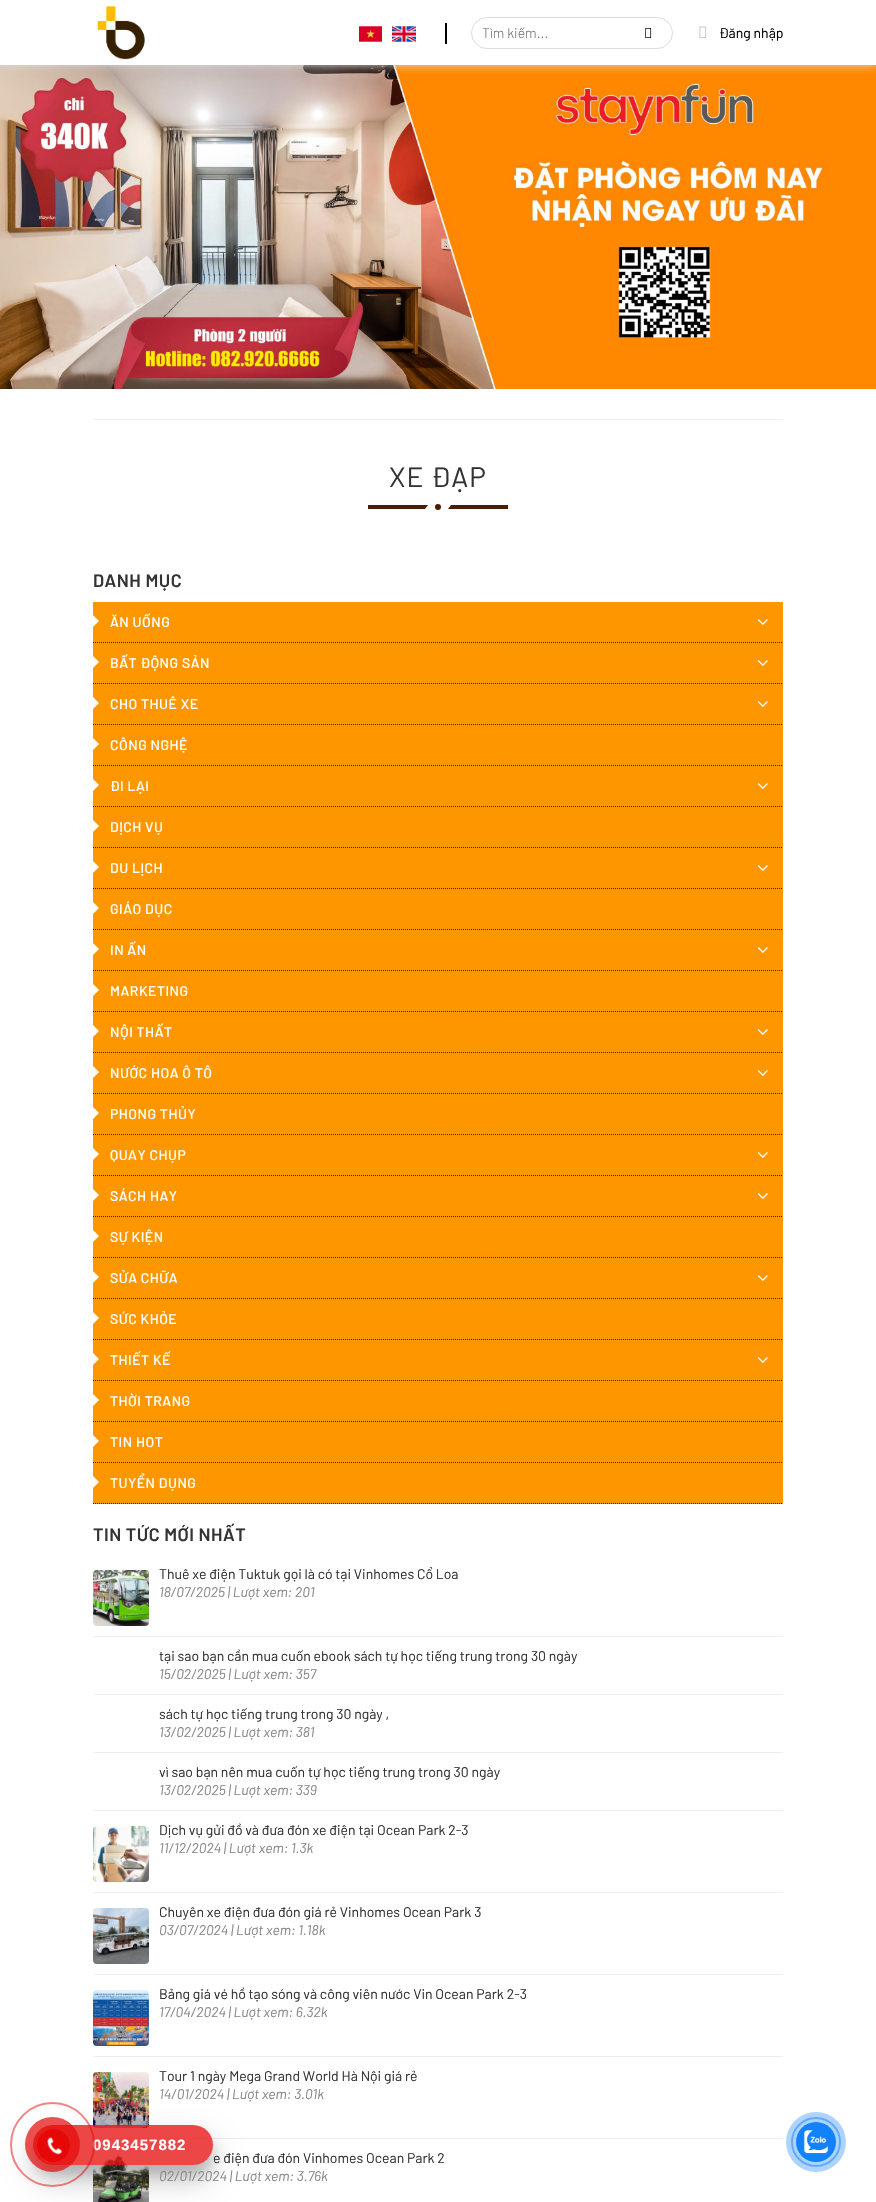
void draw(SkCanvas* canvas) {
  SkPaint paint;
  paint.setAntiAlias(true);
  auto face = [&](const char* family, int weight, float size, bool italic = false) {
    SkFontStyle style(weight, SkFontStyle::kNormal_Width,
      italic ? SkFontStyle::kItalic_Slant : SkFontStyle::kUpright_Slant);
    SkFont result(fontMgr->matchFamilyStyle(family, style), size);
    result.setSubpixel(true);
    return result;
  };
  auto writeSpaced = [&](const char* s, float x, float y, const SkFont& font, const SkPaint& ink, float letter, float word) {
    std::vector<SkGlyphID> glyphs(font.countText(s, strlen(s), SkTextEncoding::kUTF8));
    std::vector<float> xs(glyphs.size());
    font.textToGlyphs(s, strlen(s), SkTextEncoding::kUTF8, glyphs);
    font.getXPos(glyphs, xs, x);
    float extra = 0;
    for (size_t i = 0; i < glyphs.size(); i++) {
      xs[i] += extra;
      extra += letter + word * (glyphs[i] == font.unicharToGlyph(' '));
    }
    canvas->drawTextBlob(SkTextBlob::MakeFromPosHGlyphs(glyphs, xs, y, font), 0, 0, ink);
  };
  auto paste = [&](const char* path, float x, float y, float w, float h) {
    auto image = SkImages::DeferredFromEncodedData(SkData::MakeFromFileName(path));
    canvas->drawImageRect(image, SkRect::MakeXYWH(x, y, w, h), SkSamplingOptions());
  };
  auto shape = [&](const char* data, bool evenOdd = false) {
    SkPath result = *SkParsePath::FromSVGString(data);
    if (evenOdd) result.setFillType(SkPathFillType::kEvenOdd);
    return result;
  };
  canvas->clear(0xffffffff);
  paste("img/6.png", 0, 65, 876, 324);
  canvas->save();
  canvas->clipRect(SkRect::MakeXYWH(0, 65, 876, 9));
  paint.setColor(0xffdddddd);
  paint.setMaskFilter(SkMaskFilter::MakeBlur(kNormal_SkBlurStyle, 4.5f));
  canvas->drawRect(SkRect::MakeXYWH(0, 0, 876, 65), paint);
  paint.setMaskFilter(nullptr);
  canvas->restore();
  paste("img/1.png", 97, 5, 48, 55);
  paste("img/2.png", 359, 26, 23, 16);
  paste("img/3.png", 392, 26, 24, 16);
  paint.setColor(0xff000000);
  canvas->drawRect(SkRect::MakeXYWH(445, 23, 2, 21), paint);
  paint.setStroke(true);
  paint.setStrokeWidth(1);
  paint.setColor(0xffdddddd);
  canvas->drawRoundRect(SkRect::MakeXYWH(471.5f, 17.5f, 201, 31), 15.5f, 15.5f, paint);
  paste("img/4.png", 645, 28, 7, 10);
  paste("img/5.png", 699, 26, 8, 12);
  paint.setStroke(false);
  paint.setColor(0xffeeeeee);
  canvas->drawRect(SkRect::MakeXYWH(93, 419, 690, 1), paint);
  paint.setColor(0xff4e1d00);
  canvas->drawPath(shape("M368 505V509H425L428 505Z"), paint);
  canvas->drawCircle(438, 507, 3, paint);
  canvas->drawPath(shape("M508 509V505H451L448 509Z"), paint);
  paint.setColor(0xfffe9600);
  canvas->drawRect(SkRect::MakeXYWH(93, 602, 690, 902), paint);
  paint.setStroke(true);
  paint.setColor(0xff4e1d00);
  paint.setPathEffect(SkDashPathEffect::Make({{1, 1}}, 0));
  canvas->drawPath(shape("M93 642.5H783"), paint);
  paint.setPathEffect(nullptr);
  paint.setStroke(false);
  paint.setColor(0xffffffff);
  canvas->drawPath(shape("M93 627V615L99 621Z"), paint);
  paste("img/7.png", 757, 619, 11, 6);
  paint.setStroke(true);
  paint.setColor(0xff4e1d00);
  paint.setPathEffect(SkDashPathEffect::Make({{1, 1}}, 0));
  canvas->drawPath(shape("M93 683.5H783"), paint);
  paint.setPathEffect(nullptr);
  paint.setStroke(false);
  paint.setColor(0xffffffff);
  canvas->drawPath(shape("M93 668V656L99 662Z"), paint);
  paste("img/7.png", 757, 660, 11, 6);
  paint.setStroke(true);
  paint.setColor(0xff4e1d00);
  paint.setPathEffect(SkDashPathEffect::Make({{1, 1}}, 0));
  canvas->drawPath(shape("M93 724.5H783"), paint);
  paint.setPathEffect(nullptr);
  paint.setStroke(false);
  paint.setColor(0xffffffff);
  canvas->drawPath(shape("M93 709V697L99 703Z"), paint);
  paste("img/7.png", 757, 701, 11, 6);
  paint.setStroke(true);
  paint.setColor(0xff4e1d00);
  paint.setPathEffect(SkDashPathEffect::Make({{1, 1}}, 0));
  canvas->drawPath(shape("M93 765.5H783"), paint);
  paint.setPathEffect(nullptr);
  paint.setStroke(false);
  paint.setColor(0xffffffff);
  canvas->drawPath(shape("M93 750V738L99 744Z"), paint);
  paint.setStroke(true);
  paint.setColor(0xff4e1d00);
  paint.setPathEffect(SkDashPathEffect::Make({{1, 1}}, 0));
  canvas->drawPath(shape("M93 806.5H783"), paint);
  paint.setPathEffect(nullptr);
  paint.setStroke(false);
  paint.setColor(0xffffffff);
  canvas->drawPath(shape("M93 791V779L99 785Z"), paint);
  paste("img/7.png", 757, 783, 11, 6);
  paint.setStroke(true);
  paint.setColor(0xff4e1d00);
  paint.setPathEffect(SkDashPathEffect::Make({{1, 1}}, 0));
  canvas->drawPath(shape("M93 847.5H783"), paint);
  paint.setPathEffect(nullptr);
  paint.setStroke(false);
  paint.setColor(0xffffffff);
  canvas->drawPath(shape("M93 832V820L99 826Z"), paint);
  paint.setStroke(true);
  paint.setColor(0xff4e1d00);
  paint.setPathEffect(SkDashPathEffect::Make({{1, 1}}, 0));
  canvas->drawPath(shape("M93 888.5H783"), paint);
  paint.setPathEffect(nullptr);
  paint.setStroke(false);
  paint.setColor(0xffffffff);
  canvas->drawPath(shape("M93 873V861L99 867Z"), paint);
  paste("img/7.png", 757, 865, 11, 6);
  paint.setStroke(true);
  paint.setColor(0xff4e1d00);
  paint.setPathEffect(SkDashPathEffect::Make({{1, 1}}, 0));
  canvas->drawPath(shape("M93 929.5H783"), paint);
  paint.setPathEffect(nullptr);
  paint.setStroke(false);
  paint.setColor(0xffffffff);
  canvas->drawPath(shape("M93 914V902L99 908Z"), paint);
  paint.setStroke(true);
  paint.setColor(0xff4e1d00);
  paint.setPathEffect(SkDashPathEffect::Make({{1, 1}}, 0));
  canvas->drawPath(shape("M93 970.5H783"), paint);
  paint.setPathEffect(nullptr);
  paint.setStroke(false);
  paint.setColor(0xffffffff);
  canvas->drawPath(shape("M93 955V943L99 949Z"), paint);
  paste("img/7.png", 757, 947, 11, 6);
  paint.setStroke(true);
  paint.setColor(0xff4e1d00);
  paint.setPathEffect(SkDashPathEffect::Make({{1, 1}}, 0));
  canvas->drawPath(shape("M93 1011.5H783"), paint);
  paint.setPathEffect(nullptr);
  paint.setStroke(false);
  paint.setColor(0xffffffff);
  canvas->drawPath(shape("M93 996V984L99 990Z"), paint);
  paint.setStroke(true);
  paint.setColor(0xff4e1d00);
  paint.setPathEffect(SkDashPathEffect::Make({{1, 1}}, 0));
  canvas->drawPath(shape("M93 1052.5H783"), paint);
  paint.setPathEffect(nullptr);
  paint.setStroke(false);
  paint.setColor(0xffffffff);
  canvas->drawPath(shape("M93 1037V1025L99 1031Z"), paint);
  paste("img/7.png", 757, 1029, 11, 6);
  paint.setStroke(true);
  paint.setColor(0xff4e1d00);
  paint.setPathEffect(SkDashPathEffect::Make({{1, 1}}, 0));
  canvas->drawPath(shape("M93 1093.5H783"), paint);
  paint.setPathEffect(nullptr);
  paint.setStroke(false);
  paint.setColor(0xffffffff);
  canvas->drawPath(shape("M93 1078V1066L99 1072Z"), paint);
  paste("img/7.png", 757, 1070, 11, 6);
  paint.setStroke(true);
  paint.setColor(0xff4e1d00);
  paint.setPathEffect(SkDashPathEffect::Make({{1, 1}}, 0));
  canvas->drawPath(shape("M93 1134.5H783"), paint);
  paint.setPathEffect(nullptr);
  paint.setStroke(false);
  paint.setColor(0xffffffff);
  canvas->drawPath(shape("M93 1119V1107L99 1113Z"), paint);
  paint.setStroke(true);
  paint.setColor(0xff4e1d00);
  paint.setPathEffect(SkDashPathEffect::Make({{1, 1}}, 0));
  canvas->drawPath(shape("M93 1175.5H783"), paint);
  paint.setPathEffect(nullptr);
  paint.setStroke(false);
  paint.setColor(0xffffffff);
  canvas->drawPath(shape("M93 1160V1148L99 1154Z"), paint);
  paste("img/7.png", 757, 1152, 11, 6);
  paint.setStroke(true);
  paint.setColor(0xff4e1d00);
  paint.setPathEffect(SkDashPathEffect::Make({{1, 1}}, 0));
  canvas->drawPath(shape("M93 1216.5H783"), paint);
  paint.setPathEffect(nullptr);
  paint.setStroke(false);
  paint.setColor(0xffffffff);
  canvas->drawPath(shape("M93 1201V1189L99 1195Z"), paint);
  paste("img/7.png", 757, 1193, 11, 6);
  paint.setStroke(true);
  paint.setColor(0xff4e1d00);
  paint.setPathEffect(SkDashPathEffect::Make({{1, 1}}, 0));
  canvas->drawPath(shape("M93 1257.5H783"), paint);
  paint.setPathEffect(nullptr);
  paint.setStroke(false);
  paint.setColor(0xffffffff);
  canvas->drawPath(shape("M93 1242V1230L99 1236Z"), paint);
  paint.setStroke(true);
  paint.setColor(0xff4e1d00);
  paint.setPathEffect(SkDashPathEffect::Make({{1, 1}}, 0));
  canvas->drawPath(shape("M93 1298.5H783"), paint);
  paint.setPathEffect(nullptr);
  paint.setStroke(false);
  paint.setColor(0xffffffff);
  canvas->drawPath(shape("M93 1283V1271L99 1277Z"), paint);
  paste("img/7.png", 757, 1275, 11, 6);
  paint.setStroke(true);
  paint.setColor(0xff4e1d00);
  paint.setPathEffect(SkDashPathEffect::Make({{1, 1}}, 0));
  canvas->drawPath(shape("M93 1339.5H783"), paint);
  paint.setPathEffect(nullptr);
  paint.setStroke(false);
  paint.setColor(0xffffffff);
  canvas->drawPath(shape("M93 1324V1312L99 1318Z"), paint);
  paint.setStroke(true);
  paint.setColor(0xff4e1d00);
  paint.setPathEffect(SkDashPathEffect::Make({{1, 1}}, 0));
  canvas->drawPath(shape("M93 1380.5H783"), paint);
  paint.setPathEffect(nullptr);
  paint.setStroke(false);
  paint.setColor(0xffffffff);
  canvas->drawPath(shape("M93 1365V1353L99 1359Z"), paint);
  paste("img/7.png", 757, 1357, 11, 6);
  paint.setStroke(true);
  paint.setColor(0xff4e1d00);
  paint.setPathEffect(SkDashPathEffect::Make({{1, 1}}, 0));
  canvas->drawPath(shape("M93 1421.5H783"), paint);
  paint.setPathEffect(nullptr);
  paint.setStroke(false);
  paint.setColor(0xffffffff);
  canvas->drawPath(shape("M93 1406V1394L99 1400Z"), paint);
  paint.setStroke(true);
  paint.setColor(0xff4e1d00);
  paint.setPathEffect(SkDashPathEffect::Make({{1, 1}}, 0));
  canvas->drawPath(shape("M93 1462.5H783"), paint);
  paint.setPathEffect(nullptr);
  paint.setStroke(false);
  paint.setColor(0xffffffff);
  canvas->drawPath(shape("M93 1447V1435L99 1441Z"), paint);
  paint.setStroke(true);
  paint.setColor(0xff4e1d00);
  paint.setPathEffect(SkDashPathEffect::Make({{1, 1}}, 0));
  canvas->drawPath(shape("M93 1503.5H783"), paint);
  paint.setPathEffect(nullptr);
  paint.setStroke(false);
  paint.setColor(0xffffffff);
  canvas->drawPath(shape("M93 1488V1476L99 1482Z"), paint);
  paint.setColor(0xffeeeeee);
  canvas->drawRect(SkRect::MakeXYWH(93, 1636, 690, 1), paint);
  paste("img/8.png", 93, 1570, 56, 56);
  {
    const struct { float x, y, w, h; SkColor color; } items[] = {
      {93, 1694, 690, 1, 0xffeeeeee},
      {93, 1752, 690, 1, 0xffeeeeee},
      {93, 1810, 690, 1, 0xffeeeeee},
      {93, 1892, 690, 1, 0xffeeeeee},
    };
    for (auto [x, y, w, h, color] : items) {
      paint.setColor(color);
      canvas->drawRect(SkRect::MakeXYWH(x, y, w, h), paint);
    }
  }
  paste("img/9.png", 93, 1826, 56, 56);
  canvas->drawRect(SkRect::MakeXYWH(93, 1974, 690, 1), paint);
  paste("img/10.png", 93, 1908, 56, 56);
  canvas->drawRect(SkRect::MakeXYWH(93, 2056, 690, 1), paint);
  paste("img/11.png", 93, 1990, 56, 56);
  canvas->drawRect(SkRect::MakeXYWH(93, 2138, 690, 1), paint);
  paste("img/12.png", 93, 2072, 56, 56);
  paste("img/13.png", 93, 2154, 56, 48);
  paint.setStroke(true);
  paint.setStrokeWidth(2);
  paint.setColor(0xff88c1fe);
  canvas->drawCircle(816, 2142, 24, paint);
  paint.setStroke(false);
  paint.setColor(0x571182fc);
  canvas->drawCircle(816, 2142, 30, paint);
  paint.setColor(0xff1182fc);
  canvas->drawCircle(816, 2142, 20, paint);
  paste("img/14.png", 803, 2130, 25, 24);
  canvas->save();
  canvas->clipPath(shape("M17 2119H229V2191H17ZM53 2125H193C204 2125 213 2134 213 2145C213 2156 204 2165 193 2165H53C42 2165 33 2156 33 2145C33 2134 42 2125 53 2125Z", true), true);
  paint.setColor(0x1a000000);
  paint.setMaskFilter(SkMaskFilter::MakeBlur(kNormal_SkBlurStyle, 5));
  canvas->drawRoundRect(SkRect::MakeXYWH(33, 2135, 180, 40), 20, 20, paint);
  paint.setMaskFilter(nullptr);
  canvas->restore();
  canvas->save();
  canvas->clipPath(shape("M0 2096H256V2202H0ZM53 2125H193C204 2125 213 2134 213 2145C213 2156 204 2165 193 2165H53C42 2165 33 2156 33 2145C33 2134 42 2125 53 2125Z", true), true);
  paint.setColor(0x40000000);
  paint.setMaskFilter(SkMaskFilter::MakeBlur(kNormal_SkBlurStyle, 14));
  canvas->drawRoundRect(SkRect::MakeXYWH(33, 2139, 180, 40), 20, 20, paint);
  paint.setMaskFilter(nullptr);
  canvas->restore();
  paint.setColor(0xbfe60808);
  canvas->drawRoundRect(SkRect::MakeXYWH(33, 2125, 180, 40), 20, 20, paint);
  auto f0 = face("Barlow", 300, 14);
  paint.setColor(0xff757575);
  canvas->drawString("Tìm kiếm...", 482, 38, f0, paint);
  auto f1 = face("Barlow", 400, 14);
  paint.setColor(0xff000000);
  canvas->drawString("Đăng nhập", 719, 38, f1, paint);
  auto f2 = face("Barlow", 400, 28);
  paint.setColor(0xff333333);
  writeSpaced("XE ĐẠP", 389, 487, f2, paint, 1, 0);
  auto f3 = face("Barlow", 600, 18);
  writeSpaced("DANH MỤC", 93, 587, f3, paint, 0.5f, 0);
  auto f4 = face("Barlow", 500, 14);
  paint.setColor(0xffffffff);
  {
    const struct { const char* s; float x, y; } items[] = {
      {"ĂN UỐNG", 110, 627},
      {"BẤT ĐỘNG SẢN", 110, 668},
      {"CHO THUÊ XE", 110, 709},
      {"CÔNG NGHỆ", 110, 750},
      {"ĐI LẠI", 110, 791},
      {"DỊCH VỤ", 110, 832},
      {"DU LỊCH", 110, 873},
      {"GIÁO DỤC", 110, 914},
      {"IN ẤN", 110, 955},
      {"MARKETING", 110, 996},
      {"NỘI THẤT", 110, 1037},
      {"NƯỚC HOA Ô TÔ", 110, 1078},
      {"PHONG THỦY", 110, 1119},
      {"QUAY CHỤP", 110, 1160},
      {"SÁCH HAY", 110, 1201},
      {"SỰ KIỆN", 110, 1242},
      {"SỬA CHỮA", 110, 1283},
      {"SỨC KHỎE", 110, 1324},
      {"THIẾT KẾ", 110, 1365},
      {"THỜI TRANG", 110, 1406},
      {"TIN HOT", 110, 1447},
      {"TUYỂN DỤNG", 110, 1488},
    };
    for (auto [s, x, y] : items) {
      writeSpaced(s, x, y, f4, paint, 0.5f, 0);
    }
  }
  paint.setColor(0xff333333);
  writeSpaced("TIN TỨC MỚI NHẤT", 93, 1541, f3, paint, 0.5f, 0);
  canvas->drawString("Thuê xe điện Tuktuk gọi là có tại Vinhomes Cổ Loa", 159, 1579, f1, paint);
  auto f5 = face("Barlow", 400, 14, true);
  paint.setColor(0xff888888);
  canvas->drawString("18/07/2025 | Lượt xem: 201", 159, 1597, f5, paint);
  paint.setColor(0xff333333);
  canvas->drawString("tại sao bạn cần mua cuốn ebook sách tự học tiếng trung trong 30 ngày", 159, 1661, f1, paint);
  paint.setColor(0xff888888);
  canvas->drawString("15/02/2025 | Lượt xem: 357", 159, 1679, f5, paint);
  paint.setColor(0xff333333);
  canvas->drawString("sách tự học tiếng trung trong 30 ngày ,", 159, 1719, f1, paint);
  paint.setColor(0xff888888);
  canvas->drawString("13/02/2025 | Lượt xem: 381", 159, 1737, f5, paint);
  paint.setColor(0xff333333);
  canvas->drawString("vì sao bạn nên mua cuốn tự học tiếng trung trong 30 ngày", 159, 1777, f1, paint);
  paint.setColor(0xff888888);
  canvas->drawString("13/02/2025 | Lượt xem: 339", 159, 1795, f5, paint);
  paint.setColor(0xff333333);
  canvas->drawString("Dịch vụ gửi đồ và đưa đón xe điện tại Ocean Park 2-3", 159, 1835, f1, paint);
  paint.setColor(0xff888888);
  canvas->drawString("11/12/2024 | Lượt xem: 1.3k", 159, 1853, f5, paint);
  paint.setColor(0xff333333);
  canvas->drawString("Chuyên xe điện đưa đón giá rẻ Vinhomes Ocean Park 3", 159, 1917, f1, paint);
  paint.setColor(0xff888888);
  canvas->drawString("03/07/2024 | Lượt xem: 1.18k", 159, 1935, f5, paint);
  paint.setColor(0xff333333);
  canvas->drawString("Bảng giá vé hồ tạo sóng và công viên nước Vin Ocean Park 2-3", 159, 1999, f1, paint);
  paint.setColor(0xff888888);
  canvas->drawString("17/04/2024 | Lượt xem: 6.32k", 159, 2017, f5, paint);
  paint.setColor(0xff333333);
  canvas->drawString("Tour 1 ngày Mega Grand World Hà Nội giá rẻ", 159, 2081, f1, paint);
  paint.setColor(0xff888888);
  canvas->drawString("14/01/2024 | Lượt xem: 3.01k", 159, 2099, f5, paint);
  paint.setColor(0xff333333);
  canvas->drawString("e điện đưa đón Vinhomes Ocean Park 2", 213, 2163, f1, paint);
  paint.setColor(0xff888888);
  canvas->drawString("02/01/2024 | Lượt xem: 3.76k", 159, 2181, f5, paint);
  auto f6 = face("Liberation Sans", 700, 15);
  paint.setColor(0xffffffff);
  writeSpaced("0943457882", 93, 2150, f6, paint, 1, 0);
  paint.setStroke(true);
  paint.setColor(0x80e60808);
  canvas->drawCircle(52.5f, 2144.5f, 41.5f, paint);
  paint.setStroke(false);
  paint.setColor(0xb3e60808);
  canvas->drawCircle(52.5f, 2144.5f, 27.5f, paint);
  paint.setColor(0xffe60808);
  canvas->drawCircle(53.5f, 2145.5f, 16.5f, paint);
  paste("img/15.png", 47, 2137, 16, 18);
}
